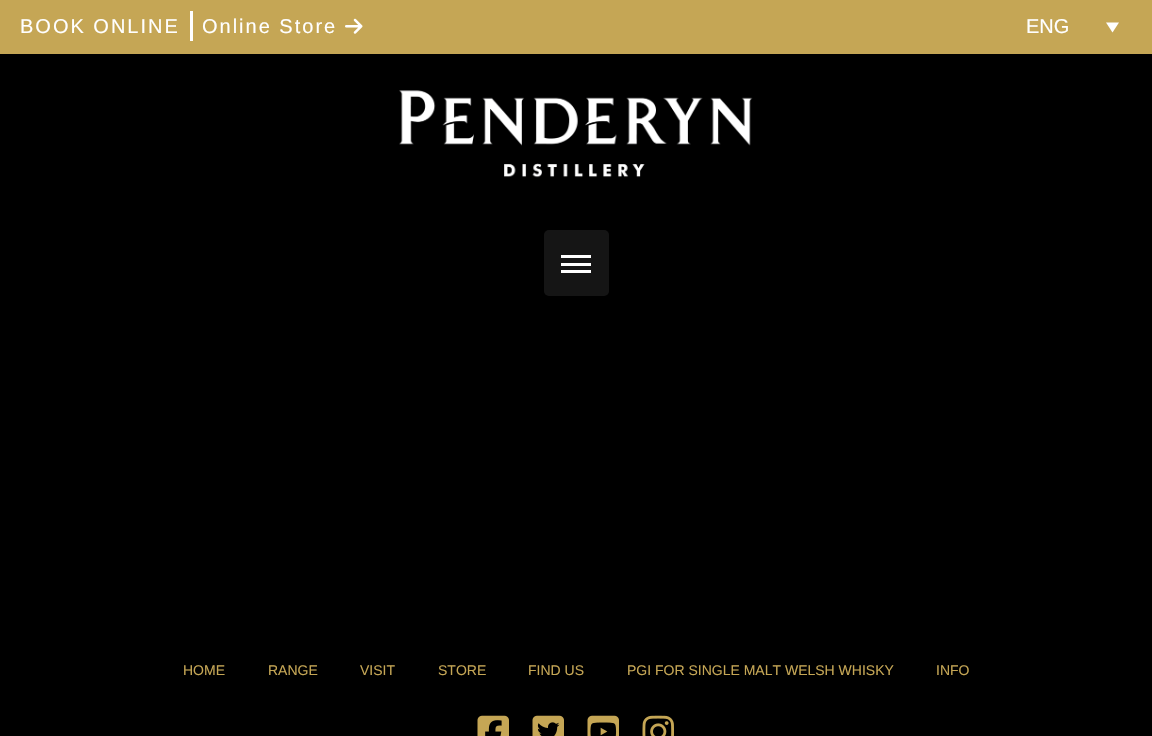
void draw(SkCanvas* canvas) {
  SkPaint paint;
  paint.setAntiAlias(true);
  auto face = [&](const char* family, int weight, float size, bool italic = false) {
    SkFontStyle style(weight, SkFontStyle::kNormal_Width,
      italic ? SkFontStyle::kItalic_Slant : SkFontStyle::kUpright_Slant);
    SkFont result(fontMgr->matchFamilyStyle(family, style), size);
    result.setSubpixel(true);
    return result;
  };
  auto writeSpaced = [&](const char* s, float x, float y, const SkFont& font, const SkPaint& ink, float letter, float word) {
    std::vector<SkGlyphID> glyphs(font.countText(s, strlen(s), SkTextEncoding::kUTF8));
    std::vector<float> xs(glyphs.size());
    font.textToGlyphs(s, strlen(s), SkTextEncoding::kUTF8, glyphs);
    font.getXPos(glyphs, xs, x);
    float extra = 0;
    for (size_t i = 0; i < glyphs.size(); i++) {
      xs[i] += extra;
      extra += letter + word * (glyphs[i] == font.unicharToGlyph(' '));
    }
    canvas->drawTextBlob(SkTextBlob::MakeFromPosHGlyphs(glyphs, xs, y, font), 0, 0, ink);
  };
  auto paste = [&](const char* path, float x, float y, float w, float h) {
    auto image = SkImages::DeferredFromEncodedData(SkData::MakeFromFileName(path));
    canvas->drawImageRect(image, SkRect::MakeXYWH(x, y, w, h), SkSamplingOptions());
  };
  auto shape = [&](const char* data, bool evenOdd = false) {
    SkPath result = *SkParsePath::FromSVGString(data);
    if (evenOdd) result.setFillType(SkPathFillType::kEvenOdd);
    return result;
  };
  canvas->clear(0xff000000);
  paint.setColor(0xffc5a655);
  canvas->drawRect(SkRect::MakeXYWH(0, 0, 1152, 54), paint);
  paint.setColor(0xffffffff);
  canvas->drawRect(SkRect::MakeXYWH(190, 11, 3, 30), paint);
  paste("img/1.png", 345, 18, 18, 16);
  canvas->drawPath(shape("M1106 22.5H1119L1112.5 32.5Z"), paint);
  paste("img/2.png", 399, 90, 354, 88);
  paint.setColor(0xff151515);
  canvas->drawRoundRect(SkRect::MakeXYWH(544, 230, 65, 66), 5, 5, paint);
  {
    const struct { float x, y, w, h; SkColor color; } items[] = {
      {561, 255, 30, 3, 0xffffffff},
      {561, 263, 30, 3, 0xffffffff},
      {561, 270, 30, 3, 0xffffffff},
    };
    for (auto [x, y, w, h, color] : items) {
      paint.setColor(color);
      canvas->drawRect(SkRect::MakeXYWH(x, y, w, h), paint);
    }
  }
  paste("img/3.png", 477, 715, 32, 21);
  paste("img/4.png", 532, 715, 32, 21);
  paste("img/5.png", 587, 715, 32, 21);
  paste("img/6.png", 642, 715, 32, 21);
  auto f0 = face("Liberation Sans", 400, 20);
  writeSpaced("BOOK ONLINE", 20, 33, f0, paint, 2, 0);
  writeSpaced("Online Store", 202, 33, f0, paint, 2, 0);
  canvas->drawString("ENG", 1026, 33, f0, paint);
  auto f1 = face("Liberation Sans", 400, 14);
  paint.setColor(0xffc5a655);
  {
    const struct { const char* s; float x, y; } items[] = {
      {"HOME", 183, 675},
      {"RANGE", 268, 675},
      {"VISIT", 360, 675},
      {"STORE", 438, 675},
      {"FIND US", 528, 675},
      {"PGI FOR SINGLE MALT WELSH WHISKY", 627, 675},
      {"INFO", 936, 675},
    };
    for (auto [s, x, y] : items) {
      canvas->drawString(s, x, y, f1, paint);
    }
  }
}
